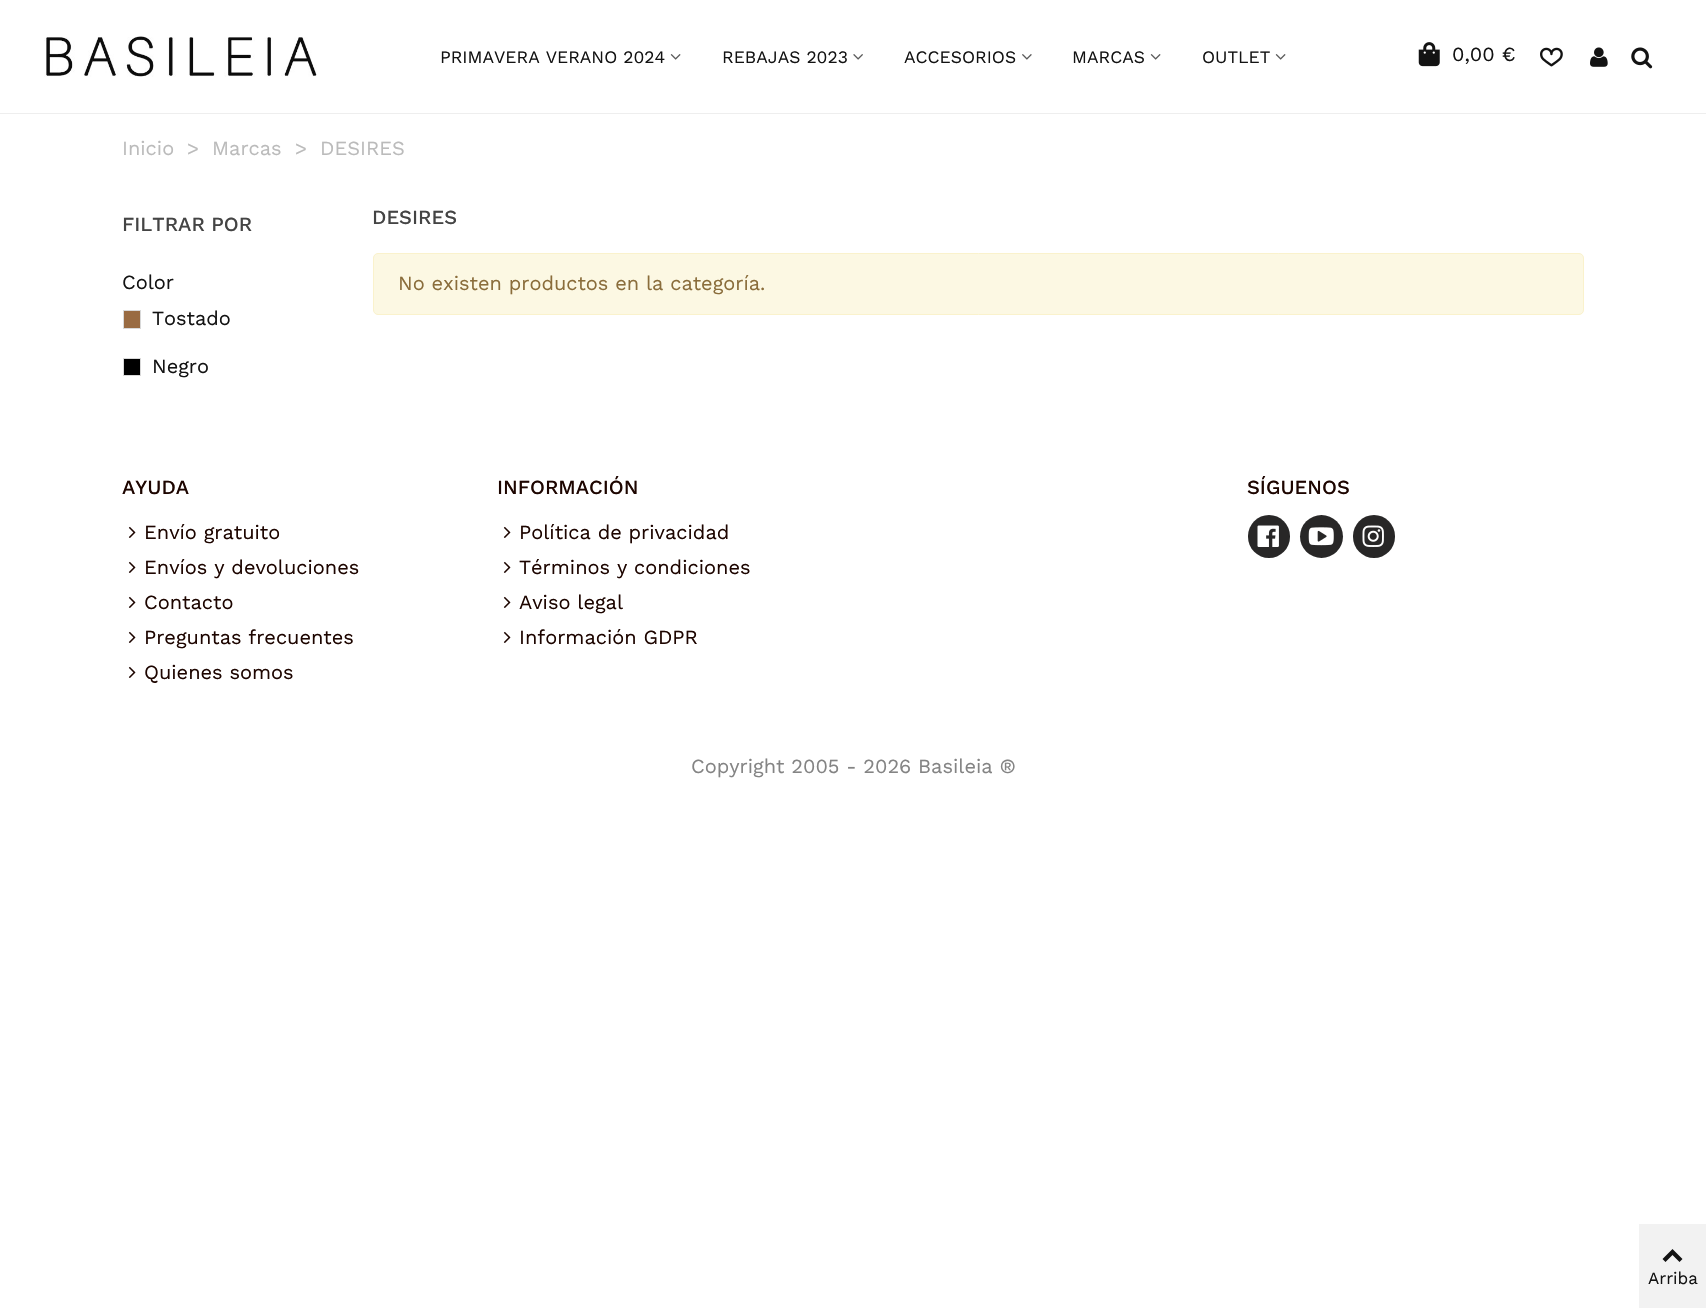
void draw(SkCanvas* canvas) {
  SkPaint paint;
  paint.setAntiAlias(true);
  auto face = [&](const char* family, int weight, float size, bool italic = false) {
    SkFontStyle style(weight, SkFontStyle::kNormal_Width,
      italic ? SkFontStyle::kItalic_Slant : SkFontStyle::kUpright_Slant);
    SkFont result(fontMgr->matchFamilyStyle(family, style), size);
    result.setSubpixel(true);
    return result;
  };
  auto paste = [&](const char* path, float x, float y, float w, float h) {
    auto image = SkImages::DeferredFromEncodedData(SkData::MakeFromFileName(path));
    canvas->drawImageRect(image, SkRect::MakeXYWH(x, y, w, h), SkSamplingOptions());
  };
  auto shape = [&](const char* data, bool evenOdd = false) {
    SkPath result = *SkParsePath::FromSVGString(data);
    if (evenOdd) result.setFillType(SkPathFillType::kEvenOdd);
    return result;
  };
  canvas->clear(0xffffffff);
  paint.setColor(0xffeeeeee);
  canvas->drawRect(SkRect::MakeXYWH(0, 113, 1706, 1), paint);
  paste("img/1.png", 44, 36, 273, 41);
  paste("img/2.png", 670, 54, 11, 6);
  paste("img/3.png", 853, 54, 10, 6);
  paste("img/4.png", 1022, 54, 10, 6);
  paste("img/2.png", 1150, 54, 11, 6);
  paste("img/2.png", 1275, 54, 11, 6);
  paste("img/5.png", 1418, 42, 22, 25);
  paste("img/6.png", 1540, 47, 23, 20);
  paste("img/7.png", 1590, 47, 18, 20);
  paste("img/8.png", 1631, 47, 22, 22);
  paint.setColor(0xff996b42);
  canvas->drawRect(SkRect::MakeXYWH(123.5f, 310.5f, 17, 18), paint);
  paint.setStroke(true);
  paint.setStrokeWidth(1);
  paint.setColor(0xffd9d9d9);
  canvas->drawRect(SkRect::MakeXYWH(123.5f, 310.5f, 17, 18), paint);
  paint.setStroke(false);
  paint.setColor(0xff000000);
  canvas->drawRect(SkRect::MakeXYWH(123.5f, 358.5f, 17, 17), paint);
  paint.setStroke(true);
  paint.setColor(0xffd9d9d9);
  canvas->drawRect(SkRect::MakeXYWH(123.5f, 358.5f, 17, 17), paint);
  paint.setStroke(false);
  paint.setColor(0xfffcf8e3);
  canvas->drawRoundRect(SkRect::MakeXYWH(373.5f, 253.5f, 1210, 61), 4.5f, 4.5f, paint);
  paint.setStroke(true);
  paint.setColor(0xfffaf2cc);
  canvas->drawRoundRect(SkRect::MakeXYWH(373.5f, 253.5f, 1210, 61), 4.5f, 4.5f, paint);
  paste("img/9.png", 128, 526, 8, 12);
  paste("img/9.png", 128, 561, 8, 12);
  paste("img/9.png", 128, 596, 8, 12);
  paste("img/9.png", 128, 631, 8, 12);
  paste("img/9.png", 128, 666, 8, 12);
  paste("img/9.png", 503, 526, 8, 12);
  paste("img/9.png", 503, 561, 8, 12);
  paste("img/9.png", 503, 596, 8, 12);
  paste("img/9.png", 503, 631, 8, 12);
  paint.setStroke(false);
  paint.setColor(0xff282727);
  canvas->drawRoundRect(SkRect::MakeXYWH(1248, 515, 42, 43), 21, 21, paint);
  paste("img/10.png", 1257, 525, 22, 22);
  canvas->drawCircle(1321.5f, 536.5f, 21.5f, paint);
  paste("img/11.png", 1308, 527, 26, 19);
  canvas->drawRoundRect(SkRect::MakeXYWH(1353, 515, 42, 43), 21, 21, paint);
  paste("img/12.png", 1362, 525, 22, 22);
  paint.setColor(0xfff2f2f2);
  canvas->drawRect(SkRect::MakeXYWH(1639, 1224, 67, 84), paint);
  paint.setColor(0xff131313);
  canvas->drawPath(shape("M1662.5 1259L1672.5 1249L1682.5 1259L1679.5 1262L1672.5 1255L1665.5 1262Z"), paint);
  auto f0 = face("Work Sans", 400, 17.5f);
  {
    const struct { const char* s; float x, y; } items[] = {
      {"PRIMAVERA VERANO 2024", 440, 63},
      {"REBAJAS 2023", 722, 63},
      {"ACCESORIOS", 904, 63},
      {"MARCAS", 1072, 63},
      {"OUTLET", 1202, 63},
    };
    for (auto [s, x, y] : items) {
      canvas->drawString(s, x, y, f0, paint);
    }
  }
  auto f1 = face("Work Sans", 400, 20);
  canvas->drawString("0,00 €", 1452, 61, f1, paint);
  paint.setColor(0xffbbbbbb);
  {
    const struct { const char* s; float x, y; } items[] = {
      {"Inicio", 122, 155},
      {">", 187, 155},
      {"Marcas", 212, 155},
      {">", 295, 155},
      {"DESIRES", 320, 155},
    };
    for (auto [s, x, y] : items) {
      canvas->drawString(s, x, y, f1, paint);
    }
  }
  auto f2 = face("Work Sans", 500, 20);
  paint.setColor(0xff444444);
  canvas->drawString("FILTRAR POR", 122, 231, f2, paint);
  paint.setColor(0xff131313);
  {
    const struct { const char* s; float x, y; } items[] = {
      {"Color", 122, 289},
      {"Tostado", 152, 325},
      {"Negro", 152, 373},
    };
    for (auto [s, x, y] : items) {
      canvas->drawString(s, x, y, f1, paint);
    }
  }
  paint.setColor(0xff444444);
  canvas->drawString("DESIRES", 372, 224, f2, paint);
  paint.setColor(0xff8a6d3b);
  canvas->drawString("No existen productos en la categoría.", 398, 290, f1, paint);
  paint.setColor(0xff1d0500);
  canvas->drawString("AYUDA", 122, 494, f2, paint);
  {
    const struct { const char* s; float x, y; } items[] = {
      {"Envío gratuito", 144, 539},
      {"Envíos y devoluciones", 144, 574},
      {"Contacto", 144, 609},
      {"Preguntas frecuentes", 144, 644},
      {"Quienes somos", 144, 679},
    };
    for (auto [s, x, y] : items) {
      canvas->drawString(s, x, y, f1, paint);
    }
  }
  canvas->drawString("INFORMACIÓN", 497, 494, f2, paint);
  {
    const struct { const char* s; float x, y; } items[] = {
      {"Política de privacidad", 519, 539},
      {"Términos y condiciones", 519, 574},
      {"Aviso legal", 519, 609},
      {"Información GDPR", 519, 644},
    };
    for (auto [s, x, y] : items) {
      canvas->drawString(s, x, y, f1, paint);
    }
  }
  canvas->drawString("SÍGUENOS", 1247, 494, f2, paint);
  paint.setColor(0xff848484);
  canvas->drawString("Copyright 2005 - 2026 Basileia ®", 691, 773, f1, paint);
  auto f3 = face("Work Sans", 400, 17);
  paint.setColor(0xff131313);
  canvas->drawString("Arriba", 1648, 1284, f3, paint);
}
